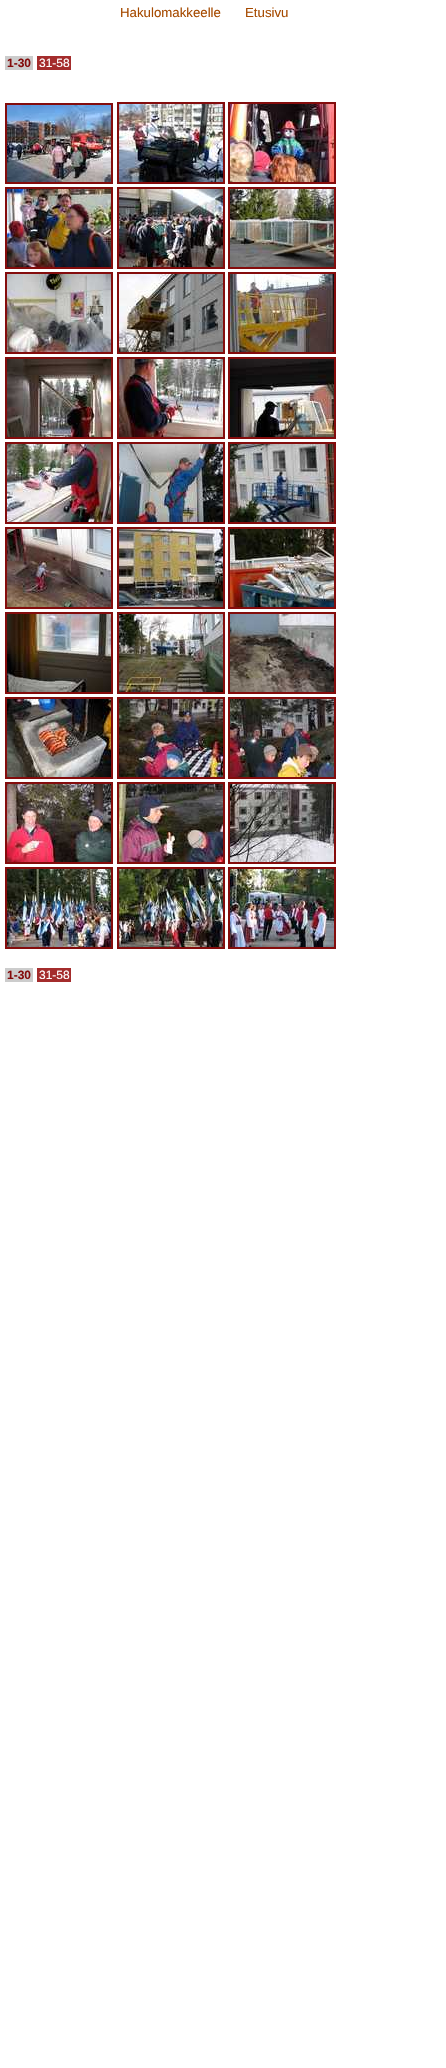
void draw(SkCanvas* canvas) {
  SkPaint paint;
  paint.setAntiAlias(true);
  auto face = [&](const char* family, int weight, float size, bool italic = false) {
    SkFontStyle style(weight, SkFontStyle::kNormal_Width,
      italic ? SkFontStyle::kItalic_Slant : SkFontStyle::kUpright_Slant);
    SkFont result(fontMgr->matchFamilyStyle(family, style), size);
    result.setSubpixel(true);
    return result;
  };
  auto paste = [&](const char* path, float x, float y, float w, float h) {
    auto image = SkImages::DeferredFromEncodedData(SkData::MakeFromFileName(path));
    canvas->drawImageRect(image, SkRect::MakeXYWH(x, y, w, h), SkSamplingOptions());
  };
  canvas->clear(0xffffffff);
  paint.setColor(0xffcccccc);
  canvas->drawRect(SkRect::MakeXYWH(5, 56, 28, 14), paint);
  paint.setColor(0xffa42c2c);
  canvas->drawRect(SkRect::MakeXYWH(37, 56, 34, 14), paint);
  paint.setStroke(true);
  paint.setStrokeWidth(2);
  paint.setColor(0xff840c0c);
  canvas->drawRect(SkRect::MakeXYWH(6, 104, 106, 79), paint);
  canvas->drawRect(SkRect::MakeXYWH(118, 103, 106, 80), paint);
  canvas->drawRect(SkRect::MakeXYWH(229, 103, 106, 80), paint);
  paste("img/1.png", 7, 105, 104, 77);
  paste("img/2.png", 119, 104, 104, 78);
  paste("img/3.png", 230, 104, 104, 78);
  canvas->drawRect(SkRect::MakeXYWH(6, 188, 106, 80), paint);
  canvas->drawRect(SkRect::MakeXYWH(118, 188, 106, 80), paint);
  canvas->drawRect(SkRect::MakeXYWH(229, 188, 106, 80), paint);
  paste("img/4.png", 7, 189, 104, 78);
  paste("img/5.png", 119, 189, 104, 78);
  paste("img/6.png", 230, 189, 104, 78);
  canvas->drawRect(SkRect::MakeXYWH(6, 273, 106, 80), paint);
  canvas->drawRect(SkRect::MakeXYWH(118, 273, 106, 80), paint);
  canvas->drawRect(SkRect::MakeXYWH(229, 273, 106, 80), paint);
  paste("img/7.png", 7, 274, 104, 78);
  paste("img/8.png", 119, 274, 104, 78);
  paste("img/9.png", 230, 274, 104, 78);
  canvas->drawRect(SkRect::MakeXYWH(6, 358, 106, 80), paint);
  canvas->drawRect(SkRect::MakeXYWH(118, 358, 106, 80), paint);
  canvas->drawRect(SkRect::MakeXYWH(229, 358, 106, 80), paint);
  paste("img/10.png", 7, 359, 104, 78);
  paste("img/11.png", 119, 359, 104, 78);
  paste("img/12.png", 230, 359, 104, 78);
  canvas->drawRect(SkRect::MakeXYWH(6, 443, 106, 80), paint);
  canvas->drawRect(SkRect::MakeXYWH(118, 443, 106, 80), paint);
  canvas->drawRect(SkRect::MakeXYWH(229, 443, 106, 80), paint);
  paste("img/13.png", 7, 444, 104, 78);
  paste("img/14.png", 119, 444, 104, 78);
  paste("img/15.png", 230, 444, 104, 78);
  canvas->drawRect(SkRect::MakeXYWH(6, 528, 106, 80), paint);
  canvas->drawRect(SkRect::MakeXYWH(118, 528, 106, 80), paint);
  canvas->drawRect(SkRect::MakeXYWH(229, 528, 106, 80), paint);
  paste("img/16.png", 7, 529, 104, 78);
  paste("img/17.png", 119, 529, 104, 78);
  paste("img/18.png", 230, 529, 104, 78);
  canvas->drawRect(SkRect::MakeXYWH(6, 613, 106, 80), paint);
  canvas->drawRect(SkRect::MakeXYWH(118, 613, 106, 80), paint);
  canvas->drawRect(SkRect::MakeXYWH(229, 613, 106, 80), paint);
  paste("img/19.png", 7, 614, 104, 78);
  paste("img/20.png", 119, 614, 104, 78);
  paste("img/21.png", 230, 614, 104, 78);
  canvas->drawRect(SkRect::MakeXYWH(6, 698, 106, 80), paint);
  canvas->drawRect(SkRect::MakeXYWH(118, 698, 106, 80), paint);
  canvas->drawRect(SkRect::MakeXYWH(229, 698, 106, 80), paint);
  paste("img/22.png", 7, 699, 104, 78);
  paste("img/23.png", 119, 699, 104, 78);
  paste("img/24.png", 230, 699, 104, 78);
  canvas->drawRect(SkRect::MakeXYWH(6, 783, 106, 80), paint);
  canvas->drawRect(SkRect::MakeXYWH(118, 783, 106, 80), paint);
  canvas->drawRect(SkRect::MakeXYWH(229, 783, 106, 80), paint);
  paste("img/25.png", 7, 784, 104, 78);
  paste("img/26.png", 119, 784, 104, 78);
  paste("img/27.png", 230, 784, 104, 78);
  canvas->drawRect(SkRect::MakeXYWH(6, 868, 106, 80), paint);
  canvas->drawRect(SkRect::MakeXYWH(118, 868, 106, 80), paint);
  canvas->drawRect(SkRect::MakeXYWH(229, 868, 106, 80), paint);
  paste("img/28.png", 7, 869, 104, 78);
  paste("img/29.png", 119, 869, 104, 78);
  paste("img/30.png", 230, 869, 104, 78);
  paint.setStroke(false);
  paint.setColor(0xffcccccc);
  canvas->drawRect(SkRect::MakeXYWH(5, 968, 28, 14), paint);
  paint.setColor(0xffa42c2c);
  canvas->drawRect(SkRect::MakeXYWH(37, 968, 34, 14), paint);
  auto f0 = face("Liberation Sans", 400, 13.25f);
  paint.setColor(0xffa64a00);
  canvas->drawString("Hakulomakkeelle", 120, 17, f0, paint);
  canvas->drawString("Etusivu", 245, 17, f0, paint);
  auto f1 = face("Liberation Sans", 700, 12);
  paint.setColor(0xff840c0c);
  canvas->drawString("1-30", 7, 67, f1, paint);
  auto f2 = face("Liberation Sans", 400, 12);
  paint.setColor(0xffffffff);
  canvas->drawString("31-58", 39, 67, f2, paint);
  paint.setColor(0xff840c0c);
  canvas->drawString("1-30", 7, 979, f1, paint);
  paint.setColor(0xffffffff);
  canvas->drawString("31-58", 39, 979, f2, paint);
}
